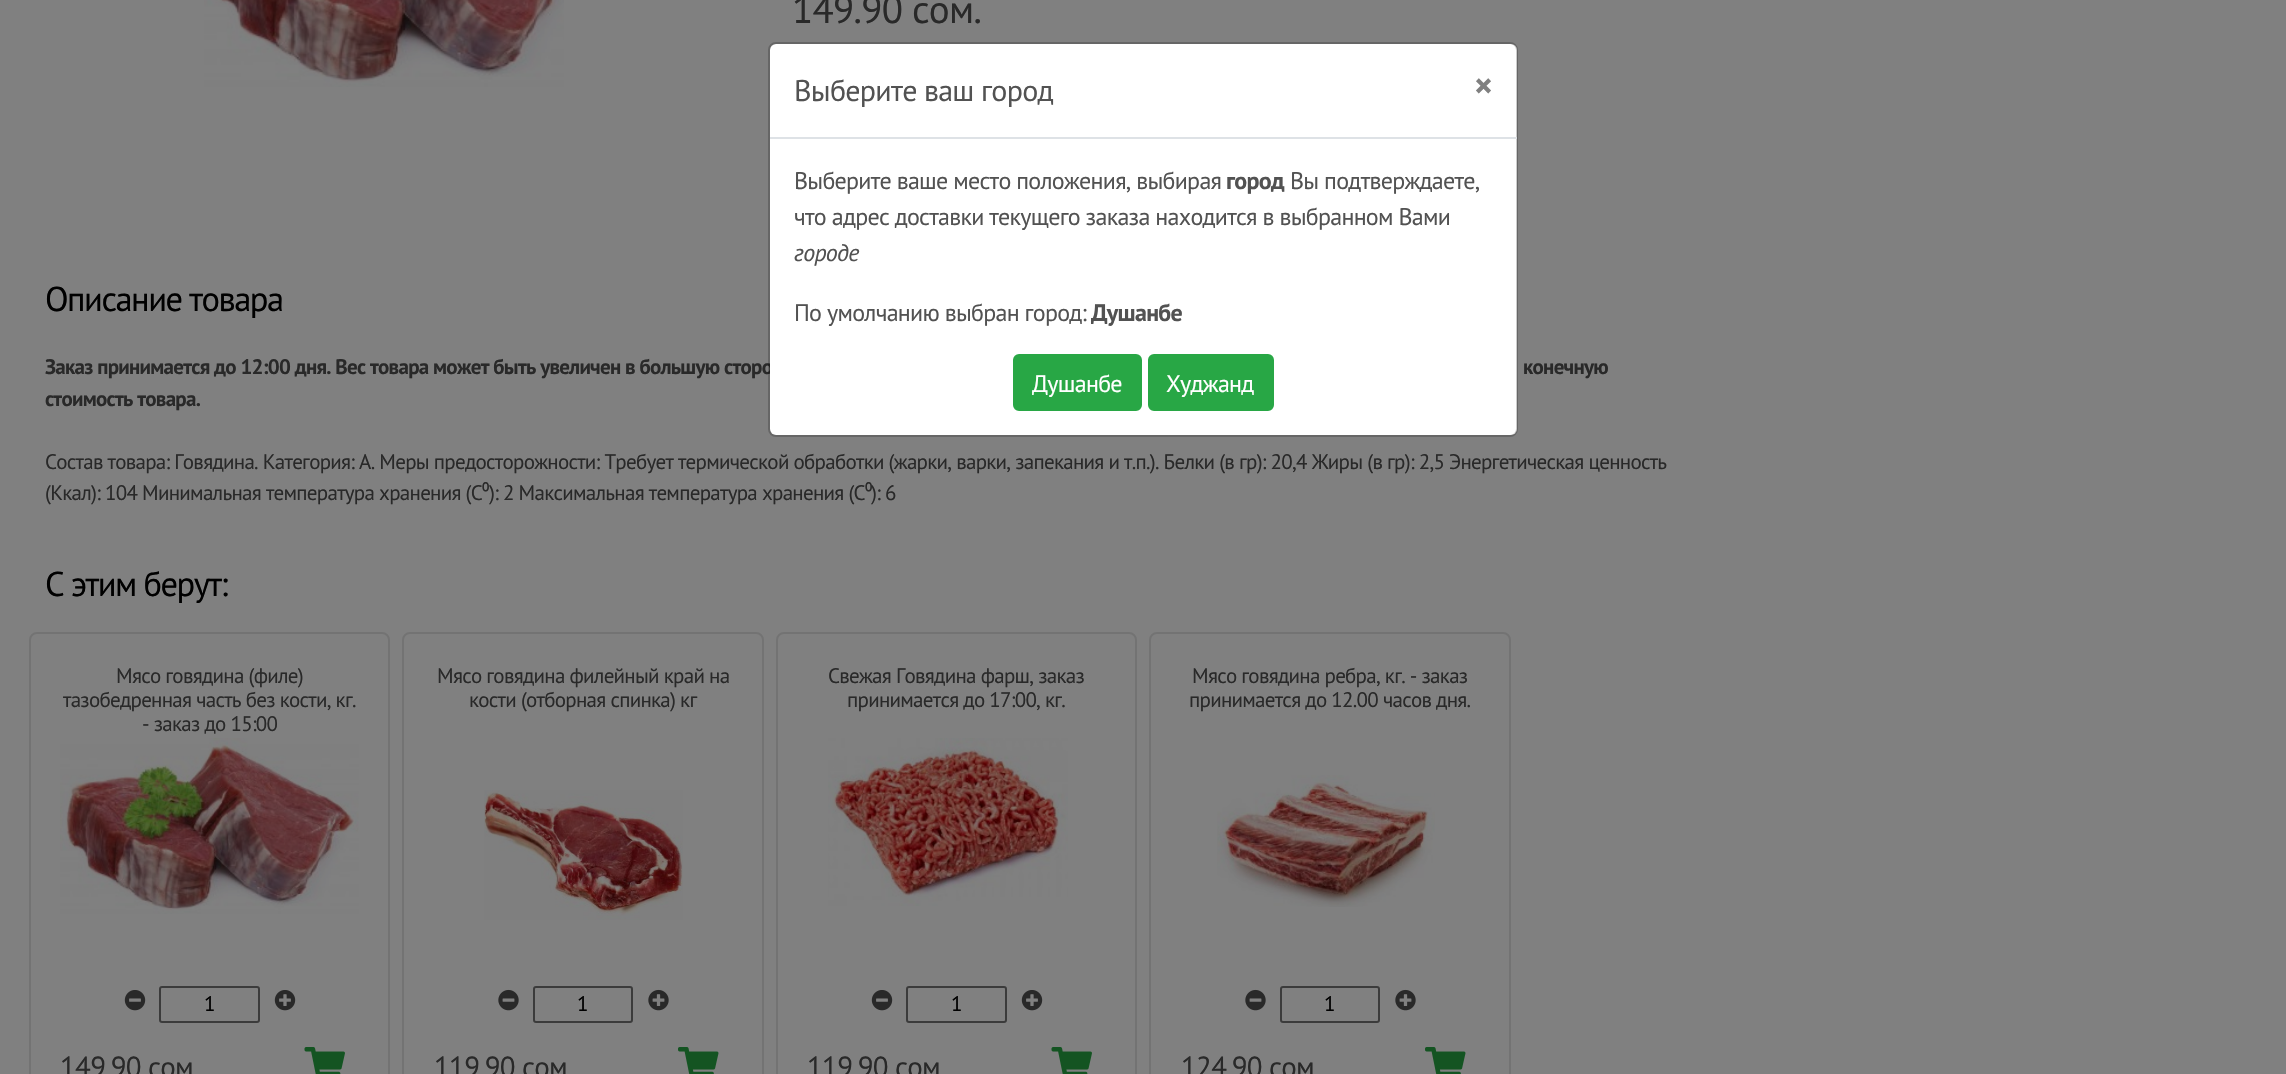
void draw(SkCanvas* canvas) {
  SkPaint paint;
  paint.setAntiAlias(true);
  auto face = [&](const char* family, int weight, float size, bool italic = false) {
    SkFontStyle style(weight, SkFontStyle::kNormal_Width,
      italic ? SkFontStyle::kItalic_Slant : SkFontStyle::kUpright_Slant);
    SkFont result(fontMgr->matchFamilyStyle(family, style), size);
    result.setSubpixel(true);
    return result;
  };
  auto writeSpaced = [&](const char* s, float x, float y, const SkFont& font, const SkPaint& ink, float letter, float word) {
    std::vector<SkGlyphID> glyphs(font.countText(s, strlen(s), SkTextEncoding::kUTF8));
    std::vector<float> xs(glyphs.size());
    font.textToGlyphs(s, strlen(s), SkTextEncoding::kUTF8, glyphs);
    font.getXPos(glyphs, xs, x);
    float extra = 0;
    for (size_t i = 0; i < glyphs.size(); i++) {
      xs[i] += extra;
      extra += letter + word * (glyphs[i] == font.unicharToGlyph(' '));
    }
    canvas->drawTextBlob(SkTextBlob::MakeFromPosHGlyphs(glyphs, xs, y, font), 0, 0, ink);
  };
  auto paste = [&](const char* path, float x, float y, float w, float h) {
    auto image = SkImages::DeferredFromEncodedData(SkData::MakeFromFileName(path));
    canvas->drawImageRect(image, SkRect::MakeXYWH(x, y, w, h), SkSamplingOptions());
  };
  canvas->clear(0xff808080);
  paste("img/1.png", 204, 0, 360, 87);
  paint.setStroke(true);
  paint.setStrokeWidth(2);
  paint.setColor(0xff737373);
  canvas->drawRoundRect(SkRect::MakeXYWH(30, 633, 359, 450), 7, 7, paint);
  paste("img/2.png", 60, 738, 299, 176);
  paste("img/3.png", 124, 990, 22, 21);
  paint.setColor(0xff3b3b3b);
  canvas->drawRoundRect(SkRect::MakeXYWH(160, 987, 99, 35), 2, 2, paint);
  paste("img/4.png", 274, 990, 22, 21);
  paste("img/5.png", 304, 1047, 41, 27);
  paint.setColor(0xff737373);
  canvas->drawRoundRect(SkRect::MakeXYWH(403, 633, 360, 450), 7, 7, paint);
  paste("img/6.png", 484, 790, 199, 130);
  paste("img/7.png", 498, 989, 21, 22);
  paint.setColor(0xff3b3b3b);
  canvas->drawRoundRect(SkRect::MakeXYWH(534, 987, 98, 35), 2, 2, paint);
  paste("img/8.png", 648, 989, 21, 22);
  paste("img/9.png", 678, 1047, 41, 27);
  paint.setColor(0xff737373);
  canvas->drawRoundRect(SkRect::MakeXYWH(777, 633, 359, 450), 7, 7, paint);
  paste("img/10.png", 828, 738, 240, 168);
  paste("img/3.png", 871, 990, 22, 21);
  paint.setColor(0xff3b3b3b);
  canvas->drawRoundRect(SkRect::MakeXYWH(907, 987, 99, 35), 2, 2, paint);
  paste("img/4.png", 1021, 990, 22, 21);
  paste("img/5.png", 1051, 1047, 41, 27);
  paint.setColor(0xff737373);
  canvas->drawRoundRect(SkRect::MakeXYWH(1150, 633, 360, 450), 7, 7, paint);
  paste("img/11.png", 1217, 775, 218, 132);
  paste("img/7.png", 1245, 989, 21, 22);
  paint.setColor(0xff3b3b3b);
  canvas->drawRoundRect(SkRect::MakeXYWH(1281, 987, 98, 35), 2, 2, paint);
  paste("img/8.png", 1395, 989, 21, 22);
  paste("img/9.png", 1425, 1047, 41, 27);
  auto f0 = face("PT Sans", 400, 39);
  paint.setStroke(false);
  paint.setColor(0xff292929);
  writeSpaced("149.90 сом.", 792, 23, f0, paint, -0.72f, 0);
  auto f1 = face("PT Sans", 400, 34.5f);
  paint.setColor(0xff000000);
  writeSpaced("Описание товара", 45, 311, f1, paint, -1.5f, 0);
  auto f2 = face("PT Sans", 700, 21);
  paint.setColor(0xff292929);
  {
    const struct { const char* s; float x, y; } items[] = {
      {"Заказ принимается до 12:00 дня. Вес товара может быть увеличен в большую сторо", 45, 374},
      {"конечную", 1523, 374},
      {"стоимость товара.", 45, 406},
    };
    for (auto [s, x, y] : items) {
      writeSpaced(s, x, y, f2, paint, -0.72f, 0);
    }
  }
  auto f3 = face("PT Sans", 400, 21);
  writeSpaced("Состав товара: Говядина. Категория: А. Меры предосторожности: Требует термической обработки (жарки, варки, запекания и т.п.). Белки (в гр): 20,4 Жиры (в гр): 2,5 Энергетическая ценность", 45, 469, f3, paint, -0.72f, 0);
  writeSpaced("(Ккал): 104 Минимальная температура хранения (С", 45, 500, f3, paint, -0.72f, 0);
  auto f4 = face("Noto Sans", 400, 21);
  writeSpaced("⁰", 482, 500, f4, paint, -0.72f, 0);
  writeSpaced("): 2 Максимальная температура хранения (С", 489, 500, f3, paint, -0.72f, 0);
  writeSpaced("⁰", 865, 500, f4, paint, -0.72f, 0);
  writeSpaced("): 6", 871, 500, f3, paint, -0.72f, 0);
  paint.setColor(0xff000000);
  writeSpaced("С этим берут:", 45, 596, f1, paint, -1.5f, 0);
  paint.setColor(0xff292929);
  {
    const struct { const char* s; float x, y; } items[] = {
      {"Мясо говядина (филе)", 116, 683},
      {"тазобедренная часть без кости, кг.", 63, 707},
      {"- заказ до 15:00", 142, 731},
    };
    for (auto [s, x, y] : items) {
      writeSpaced(s, x, y, f3, paint, -0.72f, 0);
    }
  }
  paint.setColor(0xff000000);
  canvas->drawString("1", 204, 1011, f3, paint);
  auto f5 = face("PT Sans", 400, 29);
  paint.setColor(0xff292929);
  writeSpaced("149.90 сом", 60, 1077, f5, paint, -0.72f, 0);
  writeSpaced("Мясо говядина филейный край на", 437, 683, f3, paint, -0.72f, 0);
  writeSpaced("кости (отборная спинка) кг", 469, 707, f3, paint, -0.72f, 0);
  paint.setColor(0xff000000);
  canvas->drawString("1", 577, 1011, f3, paint);
  paint.setColor(0xff292929);
  writeSpaced("119.90 сом", 434, 1077, f5, paint, -0.72f, 0);
  writeSpaced("Свежая Говядина фарш, заказ", 828, 683, f3, paint, -0.72f, 0);
  writeSpaced("принимается до 17:00, кг.", 847, 707, f3, paint, -0.72f, 0);
  paint.setColor(0xff000000);
  canvas->drawString("1", 951, 1011, f3, paint);
  paint.setColor(0xff292929);
  writeSpaced("119.90 сом", 807, 1077, f5, paint, -0.72f, 0);
  writeSpaced("Мясо говядина ребра, кг. - заказ", 1192, 683, f3, paint, -0.72f, 0);
  writeSpaced("принимается до 12.00 часов дня.", 1189, 707, f3, paint, -0.72f, 0);
  paint.setColor(0xff000000);
  canvas->drawString("1", 1324, 1011, f3, paint);
  paint.setColor(0xff292929);
  writeSpaced("124.90 сом", 1181, 1077, f5, paint, -0.72f, 0);
  paint.setColor(0xffffffff);
  canvas->drawRoundRect(SkRect::MakeXYWH(770, 44, 747, 391), 6, 6, paint);
  paint.setStroke(true);
  paint.setColor(0x33000000);
  canvas->drawRoundRect(SkRect::MakeXYWH(769, 43, 748, 393), 7, 7, paint);
  paint.setStroke(false);
  paint.setColor(0xffdee2e6);
  canvas->drawRect(SkRect::MakeXYWH(770, 137, 747, 2), paint);
  auto f6 = face("PT Sans", 400, 30);
  paint.setColor(0xff525252);
  writeSpaced("Выберите ваш город", 794, 101, f6, paint, -0.72f, 0);
  auto f7 = face("PT Sans", 700, 36);
  paint.setColor(0xff808080);
  canvas->drawString("×", 1474, 98, f7, paint);
  auto f8 = face("PT Sans", 400, 24);
  paint.setColor(0xff525252);
  writeSpaced("Выберите ваше место положения, выбирая", 794, 189, f8, paint, -0.72f, 0);
  auto f9 = face("PT Sans", 700, 24);
  writeSpaced("город", 1226, 189, f9, paint, -0.72f, 0);
  writeSpaced("Вы подтверждаете,", 1290, 189, f8, paint, -0.72f, 0);
  writeSpaced("что адрес доставки текущего заказа находится в выбранном Вами", 794, 225, f8, paint, -0.72f, 0);
  auto f10 = face("PT Sans", 400, 24, true);
  writeSpaced("городе", 794, 261, f10, paint, -0.72f, 0);
  writeSpaced("По умолчанию выбран город:", 794, 321, f8, paint, -0.72f, 0);
  writeSpaced("Душанбе", 1091, 321, f9, paint, -0.72f, 0);
  paint.setColor(0xff28a745);
  canvas->drawRoundRect(SkRect::MakeXYWH(1014, 355, 127, 55), 5, 5, paint);
  paint.setStroke(true);
  canvas->drawRoundRect(SkRect::MakeXYWH(1014, 355, 127, 55), 5, 5, paint);
  paint.setStroke(false);
  paint.setColor(0xffffffff);
  writeSpaced("Душанбе", 1032, 392, f8, paint, -0.72f, 0);
  paint.setColor(0xff28a745);
  canvas->drawRoundRect(SkRect::MakeXYWH(1149, 355, 124, 55), 5, 5, paint);
  paint.setStroke(true);
  canvas->drawRoundRect(SkRect::MakeXYWH(1149, 355, 124, 55), 5, 5, paint);
  paint.setStroke(false);
  paint.setColor(0xffffffff);
  writeSpaced("Худжанд", 1166, 392, f8, paint, -0.72f, 0);
}
